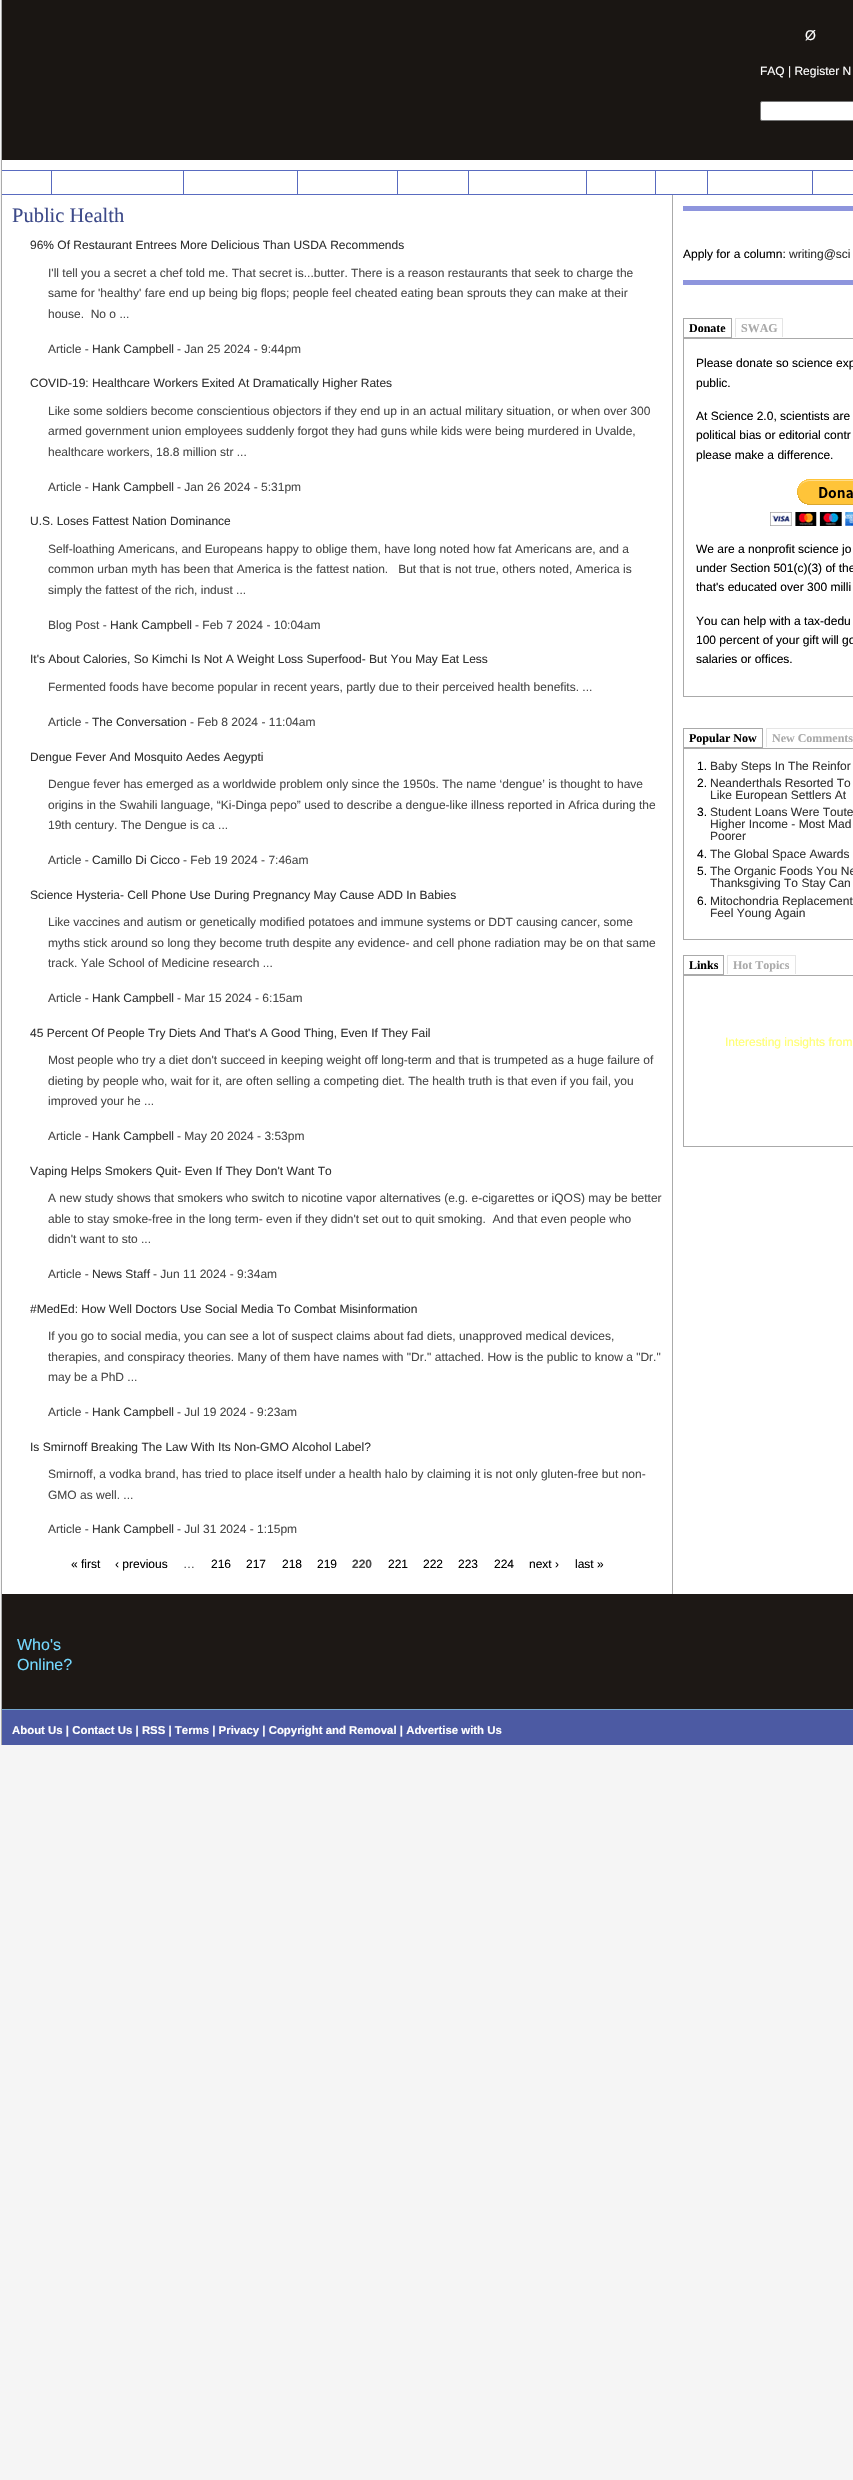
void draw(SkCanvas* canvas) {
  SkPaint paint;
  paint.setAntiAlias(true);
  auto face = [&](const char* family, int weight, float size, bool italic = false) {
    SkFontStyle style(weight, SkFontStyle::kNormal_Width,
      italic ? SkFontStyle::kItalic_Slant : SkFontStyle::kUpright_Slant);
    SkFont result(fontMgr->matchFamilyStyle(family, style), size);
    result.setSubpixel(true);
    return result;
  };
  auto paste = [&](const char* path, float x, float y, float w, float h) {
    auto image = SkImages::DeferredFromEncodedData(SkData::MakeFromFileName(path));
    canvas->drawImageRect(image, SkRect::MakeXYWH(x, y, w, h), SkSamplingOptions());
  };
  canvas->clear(0xfff5f5f5);
  {
    const struct { float x, y, w, h; SkColor color; } items[] = {
      {2, 160, 851, 1434, 0xffffffff},
      {1, 0, 1, 1745, 0xffaaaaaa},
      {2, 0, 851, 160, 0xff1a1613},
    };
    for (auto [x, y, w, h, color] : items) {
      paint.setColor(color);
      canvas->drawRect(SkRect::MakeXYWH(x, y, w, h), paint);
    }
  }
  paint.setColor(0xffffffff);
  canvas->drawRoundRect(SkRect::MakeXYWH(760.5f, 101.5f, 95, 19), 1.5f, 1.5f, paint);
  paint.setStroke(true);
  paint.setStrokeWidth(1);
  paint.setColor(0xff767676);
  canvas->drawRoundRect(SkRect::MakeXYWH(760.5f, 101.5f, 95, 19), 1.5f, 1.5f, paint);
  paint.setStroke(false);
  {
    const struct { float x, y, w, h; SkColor color; } items[] = {
      {2, 170, 851, 1, 0xff596bc0},
      {2, 194, 851, 1, 0xff596bc0},
      {51, 171, 1, 23, 0xff586abf},
      {183, 171, 1, 23, 0xff586abf},
      {297, 171, 1, 23, 0xff586abf},
      {397, 171, 1, 23, 0xff586abf},
      {468, 171, 1, 23, 0xff586abf},
      {586, 171, 1, 23, 0xff586abf},
      {655, 171, 1, 23, 0xff586abf},
      {707, 171, 1, 23, 0xff586abf},
      {812, 171, 1, 23, 0xff586abf},
      {672, 195, 1, 1399, 0xffaaaaaa},
      {683, 206, 170, 5, 0xff8e95dd},
      {683, 280, 170, 5, 0xff8e95dd},
      {683, 338, 170, 1, 0xffaaaaaa},
    };
    for (auto [x, y, w, h, color] : items) {
      paint.setColor(color);
      canvas->drawRect(SkRect::MakeXYWH(x, y, w, h), paint);
    }
  }
  paint.setStroke(true);
  canvas->drawRect(SkRect::MakeXYWH(683.5f, 318.5f, 48, 19), paint);
  paint.setStroke(false);
  {
    const struct { float x, y, w, h; SkColor color; } items[] = {
      {735, 318, 48, 1, 0xffe5e5e5},
      {782, 318, 1, 19, 0xffe5e5e5},
      {735, 318, 1, 19, 0xffe5e5e5},
      {683, 696, 170, 1, 0xffaaaaaa},
      {683, 339, 1, 358, 0xffaaaaaa},
    };
    for (auto [x, y, w, h, color] : items) {
      paint.setColor(color);
      canvas->drawRect(SkRect::MakeXYWH(x, y, w, h), paint);
    }
  }
  paste("img/1.png", 770, 479, 83, 47);
  canvas->drawRect(SkRect::MakeXYWH(683, 748, 170, 1), paint);
  paint.setStroke(true);
  canvas->drawRect(SkRect::MakeXYWH(683.5f, 728.5f, 79, 19), paint);
  paint.setStroke(false);
  {
    const struct { float x, y, w, h; SkColor color; } items[] = {
      {766, 728, 87, 1, 0xffe5e5e5},
      {766, 728, 1, 19, 0xffe5e5e5},
      {683, 939, 170, 1, 0xffaaaaaa},
      {683, 749, 1, 191, 0xffaaaaaa},
      {683, 975, 170, 1, 0xffaaaaaa},
    };
    for (auto [x, y, w, h, color] : items) {
      paint.setColor(color);
      canvas->drawRect(SkRect::MakeXYWH(x, y, w, h), paint);
    }
  }
  paint.setStroke(true);
  canvas->drawRect(SkRect::MakeXYWH(683.5f, 955.5f, 40, 19), paint);
  paint.setStroke(false);
  {
    const struct { float x, y, w, h; SkColor color; } items[] = {
      {727, 955, 69, 1, 0xffe5e5e5},
      {795, 955, 1, 19, 0xffe5e5e5},
      {727, 955, 1, 19, 0xffe5e5e5},
      {683, 1146, 170, 1, 0xffaaaaaa},
      {683, 976, 1, 171, 0xffaaaaaa},
      {2, 1594, 851, 115, 0xff1d1815},
      {2, 1710, 851, 35, 0xff4c5aa3},
      {2, 1709, 851, 1, 0xff75a6cd},
    };
    for (auto [x, y, w, h, color] : items) {
      paint.setColor(color);
      canvas->drawRect(SkRect::MakeXYWH(x, y, w, h), paint);
    }
  }
  auto f0 = face("Liberation Sans", 400, 14);
  paint.setColor(0xffffffff);
  canvas->drawString("Ø", 805, 40, f0, paint);
  auto f1 = face("Liberation Sans", 400, 12);
  canvas->drawString("FAQ | Register N", 760, 75, f1, paint);
  auto f2 = face("Liberation Serif", 400, 20.5f);
  paint.setColor(0xff3d4a89);
  canvas->drawString("Public Health", 12, 222, f2, paint);
  paint.setColor(0xff333333);
  canvas->drawString("96% Of Restaurant Entrees More Delicious Than USDA Recommends", 30, 249, f1, paint);
  paint.setColor(0xff494949);
  {
    const struct { const char* s; float x, y; } items[] = {
      {"I'll tell you a secret a chef told me. That secret is...butter. There is a reason restaurants that seek to charge the", 48, 277},
      {"same for 'healthy' fare end up being big flops; people feel cheated eating bean sprouts they can make at their", 48, 297},
      {"house.  No o ...", 48, 318},
      {"Article -", 48, 353},
    };
    for (auto [s, x, y] : items) {
      canvas->drawString(s, x, y, f1, paint);
    }
  }
  paint.setColor(0xff333333);
  canvas->drawString("Hank Campbell", 92, 353, f1, paint);
  paint.setColor(0xff494949);
  canvas->drawString("- Jan 25 2024 - 9:44pm", 177, 353, f1, paint);
  paint.setColor(0xff333333);
  canvas->drawString("COVID-19: Healthcare Workers Exited At Dramatically Higher Rates", 30, 387, f1, paint);
  paint.setColor(0xff494949);
  {
    const struct { const char* s; float x, y; } items[] = {
      {"Like some soldiers become conscientious objectors if they end up in an actual military situation, or when over 300", 48, 415},
      {"armed government union employees suddenly forgot they had guns while kids were being murdered in Uvalde,", 48, 435},
      {"healthcare workers, 18.8 million str ...", 48, 456},
      {"Article -", 48, 491},
    };
    for (auto [s, x, y] : items) {
      canvas->drawString(s, x, y, f1, paint);
    }
  }
  paint.setColor(0xff333333);
  canvas->drawString("Hank Campbell", 92, 491, f1, paint);
  paint.setColor(0xff494949);
  canvas->drawString("- Jan 26 2024 - 5:31pm", 177, 491, f1, paint);
  paint.setColor(0xff333333);
  canvas->drawString("U.S. Loses Fattest Nation Dominance", 30, 525, f1, paint);
  paint.setColor(0xff494949);
  {
    const struct { const char* s; float x, y; } items[] = {
      {"Self-loathing Americans, and Europeans happy to oblige them, have long noted how fat Americans are, and a", 48, 553},
      {"common urban myth has been that America is the fattest nation.   But that is not true, others noted, America is", 48, 573},
      {"simply the fattest of the rich, indust ...", 48, 594},
      {"Blog Post -", 48, 629},
    };
    for (auto [s, x, y] : items) {
      canvas->drawString(s, x, y, f1, paint);
    }
  }
  paint.setColor(0xff333333);
  canvas->drawString("Hank Campbell", 110, 629, f1, paint);
  paint.setColor(0xff494949);
  canvas->drawString("- Feb 7 2024 - 10:04am", 195, 629, f1, paint);
  paint.setColor(0xff333333);
  canvas->drawString("It's About Calories, So Kimchi Is Not A Weight Loss Superfood- But You May Eat Less", 30, 663, f1, paint);
  paint.setColor(0xff494949);
  canvas->drawString("Fermented foods have become popular in recent years, partly due to their perceived health benefits. ...", 48, 691, f1, paint);
  canvas->drawString("Article -", 48, 726, f1, paint);
  paint.setColor(0xff333333);
  canvas->drawString("The Conversation", 92, 726, f1, paint);
  paint.setColor(0xff494949);
  canvas->drawString("- Feb 8 2024 - 11:04am", 190, 726, f1, paint);
  paint.setColor(0xff333333);
  canvas->drawString("Dengue Fever And Mosquito Aedes Aegypti", 30, 761, f1, paint);
  paint.setColor(0xff494949);
  {
    const struct { const char* s; float x, y; } items[] = {
      {"Dengue fever has emerged as a worldwide problem only since the 1950s. The name ‘dengue’ is thought to have", 48, 788},
      {"origins in the Swahili language, “Ki-Dinga pepo” used to describe a dengue-like illness reported in Africa during the", 48, 809},
      {"19th century. The Dengue is ca ...", 48, 829},
      {"Article -", 48, 864},
    };
    for (auto [s, x, y] : items) {
      canvas->drawString(s, x, y, f1, paint);
    }
  }
  paint.setColor(0xff333333);
  canvas->drawString("Camillo Di Cicco", 92, 864, f1, paint);
  paint.setColor(0xff494949);
  canvas->drawString("- Feb 19 2024 - 7:46am", 183, 864, f1, paint);
  paint.setColor(0xff333333);
  canvas->drawString("Science Hysteria- Cell Phone Use During Pregnancy May Cause ADD In Babies", 30, 899, f1, paint);
  paint.setColor(0xff494949);
  {
    const struct { const char* s; float x, y; } items[] = {
      {"Like vaccines and autism or genetically modified potatoes and immune systems or DDT causing cancer, some", 48, 926},
      {"myths stick around so long they become truth despite any evidence- and cell phone radiation may be on that same", 48, 947},
      {"track. Yale School of Medicine research ...", 48, 967},
      {"Article -", 48, 1002},
    };
    for (auto [s, x, y] : items) {
      canvas->drawString(s, x, y, f1, paint);
    }
  }
  paint.setColor(0xff333333);
  canvas->drawString("Hank Campbell", 92, 1002, f1, paint);
  paint.setColor(0xff494949);
  canvas->drawString("- Mar 15 2024 - 6:15am", 177, 1002, f1, paint);
  paint.setColor(0xff333333);
  canvas->drawString("45 Percent Of People Try Diets And That's A Good Thing, Even If They Fail", 30, 1037, f1, paint);
  paint.setColor(0xff494949);
  {
    const struct { const char* s; float x, y; } items[] = {
      {"Most people who try a diet don't succeed in keeping weight off long-term and that is trumpeted as a huge failure of", 48, 1064},
      {"dieting by people who, wait for it, are often selling a competing diet. The health truth is that even if you fail, you", 48, 1085},
      {"improved your he ...", 48, 1105},
      {"Article -", 48, 1140},
    };
    for (auto [s, x, y] : items) {
      canvas->drawString(s, x, y, f1, paint);
    }
  }
  paint.setColor(0xff333333);
  canvas->drawString("Hank Campbell", 92, 1140, f1, paint);
  paint.setColor(0xff494949);
  canvas->drawString("- May 20 2024 - 3:53pm", 177, 1140, f1, paint);
  paint.setColor(0xff333333);
  canvas->drawString("Vaping Helps Smokers Quit- Even If They Don't Want To", 30, 1175, f1, paint);
  paint.setColor(0xff494949);
  {
    const struct { const char* s; float x, y; } items[] = {
      {"A new study shows that smokers who switch to nicotine vapor alternatives (e.g. e-cigarettes or iQOS) may be better", 48, 1202},
      {"able to stay smoke-free in the long term- even if they didn't set out to quit smoking.  And that even people who", 48, 1223},
      {"didn't want to sto ...", 48, 1243},
      {"Article -", 48, 1278},
    };
    for (auto [s, x, y] : items) {
      canvas->drawString(s, x, y, f1, paint);
    }
  }
  paint.setColor(0xff333333);
  canvas->drawString("News Staff", 92, 1278, f1, paint);
  paint.setColor(0xff494949);
  canvas->drawString("- Jun 11 2024 - 9:34am", 153, 1278, f1, paint);
  paint.setColor(0xff333333);
  canvas->drawString("#MedEd: How Well Doctors Use Social Media To Combat Misinformation", 30, 1313, f1, paint);
  paint.setColor(0xff494949);
  {
    const struct { const char* s; float x, y; } items[] = {
      {"If you go to social media, you can see a lot of suspect claims about fad diets, unapproved medical devices,", 48, 1340},
      {"therapies, and conspiracy theories. Many of them have names with \"Dr.\" attached. How is the public to know a \"Dr.\"", 48, 1361},
      {"may be a PhD ...", 48, 1381},
      {"Article -", 48, 1416},
    };
    for (auto [s, x, y] : items) {
      canvas->drawString(s, x, y, f1, paint);
    }
  }
  paint.setColor(0xff333333);
  canvas->drawString("Hank Campbell", 92, 1416, f1, paint);
  paint.setColor(0xff494949);
  canvas->drawString("- Jul 19 2024 - 9:23am", 177, 1416, f1, paint);
  paint.setColor(0xff333333);
  canvas->drawString("Is Smirnoff Breaking The Law With Its Non-GMO Alcohol Label?", 30, 1451, f1, paint);
  paint.setColor(0xff494949);
  {
    const struct { const char* s; float x, y; } items[] = {
      {"Smirnoff, a vodka brand, has tried to place itself under a health halo by claiming it is not only gluten-free but non-", 48, 1478},
      {"GMO as well. ...", 48, 1499},
      {"Article -", 48, 1533},
    };
    for (auto [s, x, y] : items) {
      canvas->drawString(s, x, y, f1, paint);
    }
  }
  paint.setColor(0xff333333);
  canvas->drawString("Hank Campbell", 92, 1533, f1, paint);
  paint.setColor(0xff494949);
  canvas->drawString("- Jul 31 2024 - 1:15pm", 177, 1533, f1, paint);
  paint.setColor(0xff000000);
  canvas->drawString("« first", 71, 1568, f1, paint);
  canvas->drawString("‹ previous", 115, 1568, f1, paint);
  paint.setColor(0xff494949);
  canvas->drawString("…", 183, 1568, f1, paint);
  paint.setColor(0xff000000);
  {
    const struct { const char* s; float x, y; } items[] = {
      {"216", 211, 1568},
      {"217", 246, 1568},
      {"218", 282, 1568},
      {"219", 317, 1568},
    };
    for (auto [s, x, y] : items) {
      canvas->drawString(s, x, y, f1, paint);
    }
  }
  auto f3 = face("Liberation Sans", 700, 12);
  paint.setColor(0xff494949);
  canvas->drawString("220", 352, 1568, f3, paint);
  paint.setColor(0xff000000);
  {
    const struct { const char* s; float x, y; } items[] = {
      {"221", 388, 1568},
      {"222", 423, 1568},
      {"223", 458, 1568},
      {"224", 494, 1568},
      {"next ›", 529, 1568},
      {"last »", 575, 1568},
      {"Apply for a column:", 683, 258},
    };
    for (auto [s, x, y] : items) {
      canvas->drawString(s, x, y, f1, paint);
    }
  }
  paint.setColor(0xff333333);
  canvas->drawString("writing@sci", 789, 258, f1, paint);
  auto f4 = face("Liberation Serif", 700, 12);
  paint.setColor(0xff000000);
  canvas->drawString("Donate", 689, 332, f4, paint);
  paint.setColor(0xffaaaaaa);
  canvas->drawString("SWAG", 741, 332, f4, paint);
  paint.setColor(0xff000000);
  {
    const struct { const char* s; float x, y; } items[] = {
      {"Please donate so science exp", 696, 367},
      {"public.", 696, 387},
      {"At Science 2.0, scientists are", 696, 420},
      {"political bias or editorial contr", 696, 439},
      {"please make a difference.", 696, 459},
      {"We are a nonprofit science jo", 696, 553},
      {"under Section 501(c)(3) of the", 696, 572},
      {"that's educated over 300 milli", 696, 591},
      {"You can help with a tax-dedu", 696, 625},
      {"100 percent of your gift will go", 696, 644},
      {"salaries or offices.", 696, 663},
    };
    for (auto [s, x, y] : items) {
      canvas->drawString(s, x, y, f1, paint);
    }
  }
  canvas->drawString("Popular Now", 689, 742, f4, paint);
  paint.setColor(0xffaaaaaa);
  canvas->drawString("New Comments", 772, 742, f4, paint);
  paint.setColor(0xff000000);
  canvas->drawString("1.", 697, 770, f1, paint);
  paint.setColor(0xff333333);
  canvas->drawString("Baby Steps In The Reinfor", 710, 770, f1, paint);
  paint.setColor(0xff000000);
  canvas->drawString("2.", 697, 787, f1, paint);
  paint.setColor(0xff333333);
  canvas->drawString("Neanderthals Resorted To", 710, 787, f1, paint);
  canvas->drawString("Like European Settlers At", 710, 799, f1, paint);
  paint.setColor(0xff000000);
  canvas->drawString("3.", 697, 816, f1, paint);
  paint.setColor(0xff333333);
  {
    const struct { const char* s; float x, y; } items[] = {
      {"Student Loans Were Toute", 710, 816},
      {"Higher Income - Most Mad", 710, 828},
      {"Poorer", 710, 840},
    };
    for (auto [s, x, y] : items) {
      canvas->drawString(s, x, y, f1, paint);
    }
  }
  paint.setColor(0xff000000);
  canvas->drawString("4.", 697, 858, f1, paint);
  paint.setColor(0xff333333);
  canvas->drawString("The Global Space Awards", 710, 858, f1, paint);
  paint.setColor(0xff000000);
  canvas->drawString("5.", 697, 875, f1, paint);
  paint.setColor(0xff333333);
  canvas->drawString("The Organic Foods You Ne", 710, 875, f1, paint);
  canvas->drawString("Thanksgiving To Stay Can", 710, 887, f1, paint);
  paint.setColor(0xff000000);
  canvas->drawString("6.", 697, 905, f1, paint);
  paint.setColor(0xff333333);
  canvas->drawString("Mitochondria Replacement", 710, 905, f1, paint);
  canvas->drawString("Feel Young Again", 710, 917, f1, paint);
  paint.setColor(0xff000000);
  canvas->drawString("Links", 689, 969, f4, paint);
  paint.setColor(0xffaaaaaa);
  canvas->drawString("Hot Topics", 733, 969, f4, paint);
  paint.setColor(0xffffff76);
  canvas->drawString("Interesting insights from", 725, 1046, f1, paint);
  auto f5 = face("Liberation Sans", 400, 16);
  paint.setColor(0xff74d8fe);
  canvas->drawString("Who's", 17, 1650, f5, paint);
  canvas->drawString("Online?", 17, 1670, f5, paint);
  auto f6 = face("Liberation Sans", 700, 11.4f);
  paint.setColor(0xffffffff);
  canvas->drawString("About Us | Contact Us | RSS | Terms | Privacy | Copyright and Removal | Advertise with Us", 12, 1734, f6, paint);
}
